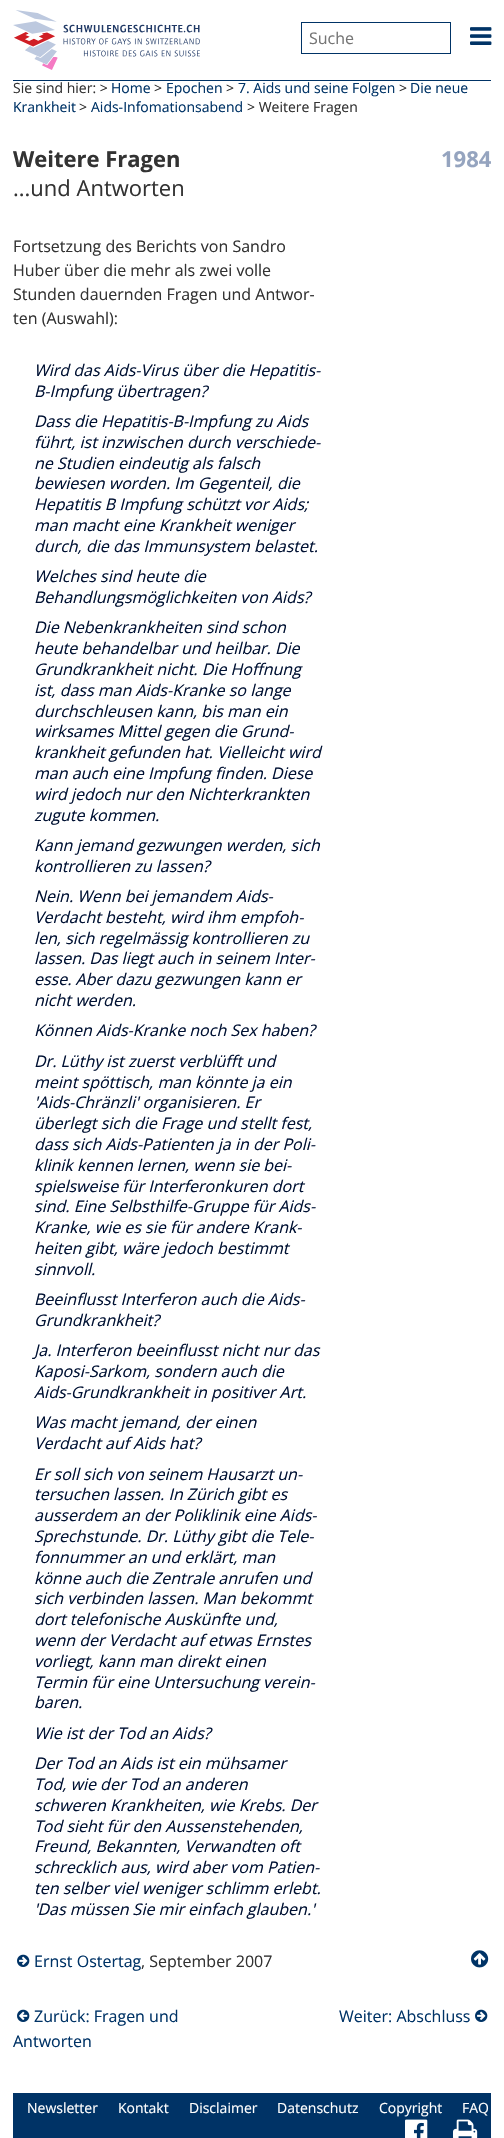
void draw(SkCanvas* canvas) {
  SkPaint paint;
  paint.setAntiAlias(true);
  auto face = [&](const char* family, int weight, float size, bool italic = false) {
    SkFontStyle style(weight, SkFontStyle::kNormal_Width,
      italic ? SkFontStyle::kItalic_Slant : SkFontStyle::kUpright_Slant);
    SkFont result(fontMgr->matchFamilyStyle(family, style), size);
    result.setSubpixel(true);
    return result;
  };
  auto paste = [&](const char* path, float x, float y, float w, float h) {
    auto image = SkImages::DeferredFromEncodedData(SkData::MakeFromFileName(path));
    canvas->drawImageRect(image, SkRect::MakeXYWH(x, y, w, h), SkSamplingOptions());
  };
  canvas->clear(0xffffffff);
  paint.setColor(0xff003366);
  canvas->drawRect(SkRect::MakeXYWH(13, 80, 478, 1), paint);
  paste("img/1.png", 13, 10, 187, 60);
  paint.setStroke(true);
  paint.setStrokeWidth(1);
  canvas->drawRect(SkRect::MakeXYWH(301.5f, 22.5f, 149, 31), paint);
  paste("img/2.png", 470, 27, 22, 18);
  paste("img/3.png", 471, 1950, 18, 18);
  paste("img/4.png", 17, 1954, 13, 13);
  paste("img/5.png", 17, 2009, 13, 13);
  paste("img/4.png", 475, 2009, 13, 13);
  paint.setStroke(false);
  canvas->drawRect(SkRect::MakeXYWH(13, 2093, 478, 45), paint);
  paste("img/6.png", 405, 2119, 23, 19);
  paste("img/7.png", 453, 2119, 25, 19);
  auto f0 = face("Open Sans", 400, 16);
  paint.setColor(0xff757575);
  canvas->drawString("Suche", 309, 44, f0, paint);
  auto f1 = face("Open Sans", 400, 14);
  paint.setColor(0xff333333);
  canvas->drawString("Sie sind hier: >", 13, 93, f1, paint);
  paint.setColor(0xff003366);
  canvas->drawString("Home", 111, 93, f1, paint);
  paint.setColor(0xff333333);
  canvas->drawString(">", 154, 93, f1, paint);
  paint.setColor(0xff003366);
  canvas->drawString("Epochen", 166, 93, f1, paint);
  paint.setColor(0xff333333);
  canvas->drawString(">", 226, 93, f1, paint);
  paint.setColor(0xff003366);
  canvas->drawString("7. Aids und seine Folgen", 238, 93, f1, paint);
  paint.setColor(0xff333333);
  canvas->drawString(">", 399, 93, f1, paint);
  paint.setColor(0xff003366);
  canvas->drawString("Die neue", 410, 93, f1, paint);
  canvas->drawString("Krankheit", 13, 112, f1, paint);
  paint.setColor(0xff333333);
  canvas->drawString(">", 79, 112, f1, paint);
  paint.setColor(0xff003366);
  canvas->drawString("Aids-Infomationsabend", 91, 112, f1, paint);
  paint.setColor(0xff333333);
  canvas->drawString("> Weitere Fragen", 247, 112, f1, paint);
  auto f2 = face("Open Sans", 700, 22);
  canvas->drawString("Weitere Fragen", 13, 167, f2, paint);
  auto f3 = face("Open Sans", 400, 22);
  canvas->drawString("...und Antworten", 13, 196, f3, paint);
  paint.setColor(0xff95a4bf);
  canvas->drawString("1984", 441, 167, f2, paint);
  paint.setColor(0xff333333);
  {
    const struct { const char* s; float x, y; } items[] = {
      {"Fortsetzung des Berichts von Sandro", 13, 252},
      {"Huber über die mehr als zwei volle", 13, 276},
      {"Stunden dauernden Fragen und Antwor-", 13, 300},
      {"ten (Auswahl):", 13, 324},
    };
    for (auto [s, x, y] : items) {
      canvas->drawString(s, x, y, f0, paint);
    }
  }
  auto f4 = face("Open Sans", 400, 16, true);
  paint.setColor(0xff001133);
  {
    const struct { const char* s; float x, y; } items[] = {
      {"Wird das Aids-Virus über die Hepatitis-", 34, 376},
      {"B-Impfung übertragen?", 34, 397},
      {"Dass die Hepatitis-B-Impfung zu Aids", 34, 427},
      {"führt, ist inzwischen durch verschiede-", 34, 448},
      {"ne Studien eindeutig als falsch", 34, 469},
      {"bewiesen worden. Im Gegenteil, die", 34, 489},
      {"Hepatitis B Impfung schützt vor Aids;", 34, 510},
      {"man macht eine Krankheit weniger", 34, 531},
      {"durch, die das Immunsystem belastet.", 34, 552},
      {"Welches sind heute die", 34, 582},
      {"Behandlungsmöglichkeiten von Aids?", 34, 603},
      {"Die Nebenkrankheiten sind schon", 34, 633},
      {"heute behandelbar und heilbar. Die", 34, 654},
      {"Grundkrankheit nicht. Die Hoffnung", 34, 675},
      {"ist, dass man Aids-Kranke so lange", 34, 696},
      {"durchschleusen kann, bis man ein", 34, 717},
      {"wirksames Mittel gegen die Grund-", 34, 737},
      {"krankheit gefunden hat. Vielleicht wird", 34, 758},
      {"man auch eine Impfung finden. Diese", 34, 779},
      {"wird jedoch nur den Nichterkrankten", 34, 800},
      {"zugute kommen.", 34, 821},
      {"Kann jemand gezwungen werden, sich", 34, 851},
      {"kontrollieren zu lassen?", 34, 872},
      {"Nein. Wenn bei jemandem Aids-", 34, 902},
      {"Verdacht besteht, wird ihm empfoh-", 34, 923},
      {"len, sich regelmässig kontrollieren zu", 34, 944},
      {"lassen. Das liegt auch in seinem Inter-", 34, 964},
      {"esse. Aber dazu gezwungen kann er", 34, 985},
      {"nicht werden.", 34, 1006},
      {"Können Aids-Kranke noch Sex haben?", 34, 1036},
      {"Dr. Lüthy ist zuerst verblüfft und", 34, 1067},
      {"meint spöttisch, man könnte ja ein", 34, 1088},
      {"'Aids-Chränzli' organisieren. Er", 34, 1108},
      {"überlegt sich die Frage und stellt fest,", 34, 1129},
      {"dass sich Aids-Patienten ja in der Poli-", 34, 1150},
      {"klinik kennen lernen, wenn sie bei-", 34, 1171},
      {"spielsweise für Interferonkuren dort", 34, 1192},
      {"sind. Eine Selbsthilfe-Gruppe für Aids-", 34, 1212},
      {"Kranke, wie es sie für andere Krank-", 34, 1233},
      {"heiten gibt, wäre jedoch bestimmt", 34, 1254},
      {"sinnvoll.", 34, 1275},
      {"Beeinflusst Interferon auch die Aids-", 34, 1305},
      {"Grundkrankheit?", 34, 1326},
      {"Ja. Interferon beeinflusst nicht nur das", 34, 1356},
      {"Kaposi-Sarkom, sondern auch die", 34, 1377},
      {"Aids-Grundkrankheit in positiver Art.", 34, 1398},
      {"Was macht jemand, der einen", 34, 1428},
      {"Verdacht auf Aids hat?", 34, 1449},
      {"Er soll sich von seinem Hausarzt un-", 34, 1480},
      {"tersuchen lassen. In Zürich gibt es", 34, 1500},
      {"ausserdem an der Poliklinik eine Aids-", 34, 1521},
      {"Sprechstunde. Dr. Lüthy gibt die Tele-", 34, 1542},
      {"fonnummer an und erklärt, man", 34, 1563},
      {"könne auch die Zentrale anrufen und", 34, 1584},
      {"sich verbinden lassen. Man bekommt", 34, 1604},
      {"dort telefonische Auskünfte und,", 34, 1625},
      {"wenn der Verdacht auf etwas Ernstes", 34, 1646},
      {"vorliegt, kann man direkt einen", 34, 1667},
      {"Termin für eine Untersuchung verein-", 34, 1688},
      {"baren.", 34, 1708},
      {"Wie ist der Tod an Aids?", 34, 1739},
      {"Der Tod an Aids ist ein mühsamer", 34, 1769},
      {"Tod, wie der Tod an anderen", 34, 1790},
      {"schweren Krankheiten, wie Krebs. Der", 34, 1811},
      {"Tod sieht für den Aussenstehenden,", 34, 1832},
      {"Freund, Bekannten, Verwandten oft", 34, 1852},
      {"schrecklich aus, wird aber vom Patien-", 34, 1873},
      {"ten selber viel weniger schlimm erlebt.", 34, 1894},
      {"'Das müssen Sie mir einfach glauben.'", 34, 1915},
    };
    for (auto [s, x, y] : items) {
      canvas->drawString(s, x, y, f4, paint);
    }
  }
  paint.setColor(0xff003366);
  canvas->drawString("Ernst Ostertag", 34, 1967, f0, paint);
  paint.setColor(0xff333333);
  canvas->drawString(", September 2007", 141, 1967, f0, paint);
  paint.setColor(0xff003366);
  {
    const struct { const char* s; float x, y; } items[] = {
      {"Zurück: Fragen und", 34, 2022},
      {"Antworten", 13, 2047},
      {"Weiter: Abschluss", 339, 2022},
    };
    for (auto [s, x, y] : items) {
      canvas->drawString(s, x, y, f0, paint);
    }
  }
  paint.setColor(0xffffffff);
  {
    const struct { const char* s; float x, y; } items[] = {
      {"Newsletter", 27, 2113},
      {"Kontakt", 118, 2113},
      {"Disclaimer", 189, 2113},
      {"Datenschutz", 277, 2113},
      {"Copyright", 379, 2113},
      {"FAQ", 462, 2113},
    };
    for (auto [s, x, y] : items) {
      canvas->drawString(s, x, y, f1, paint);
    }
  }
}
